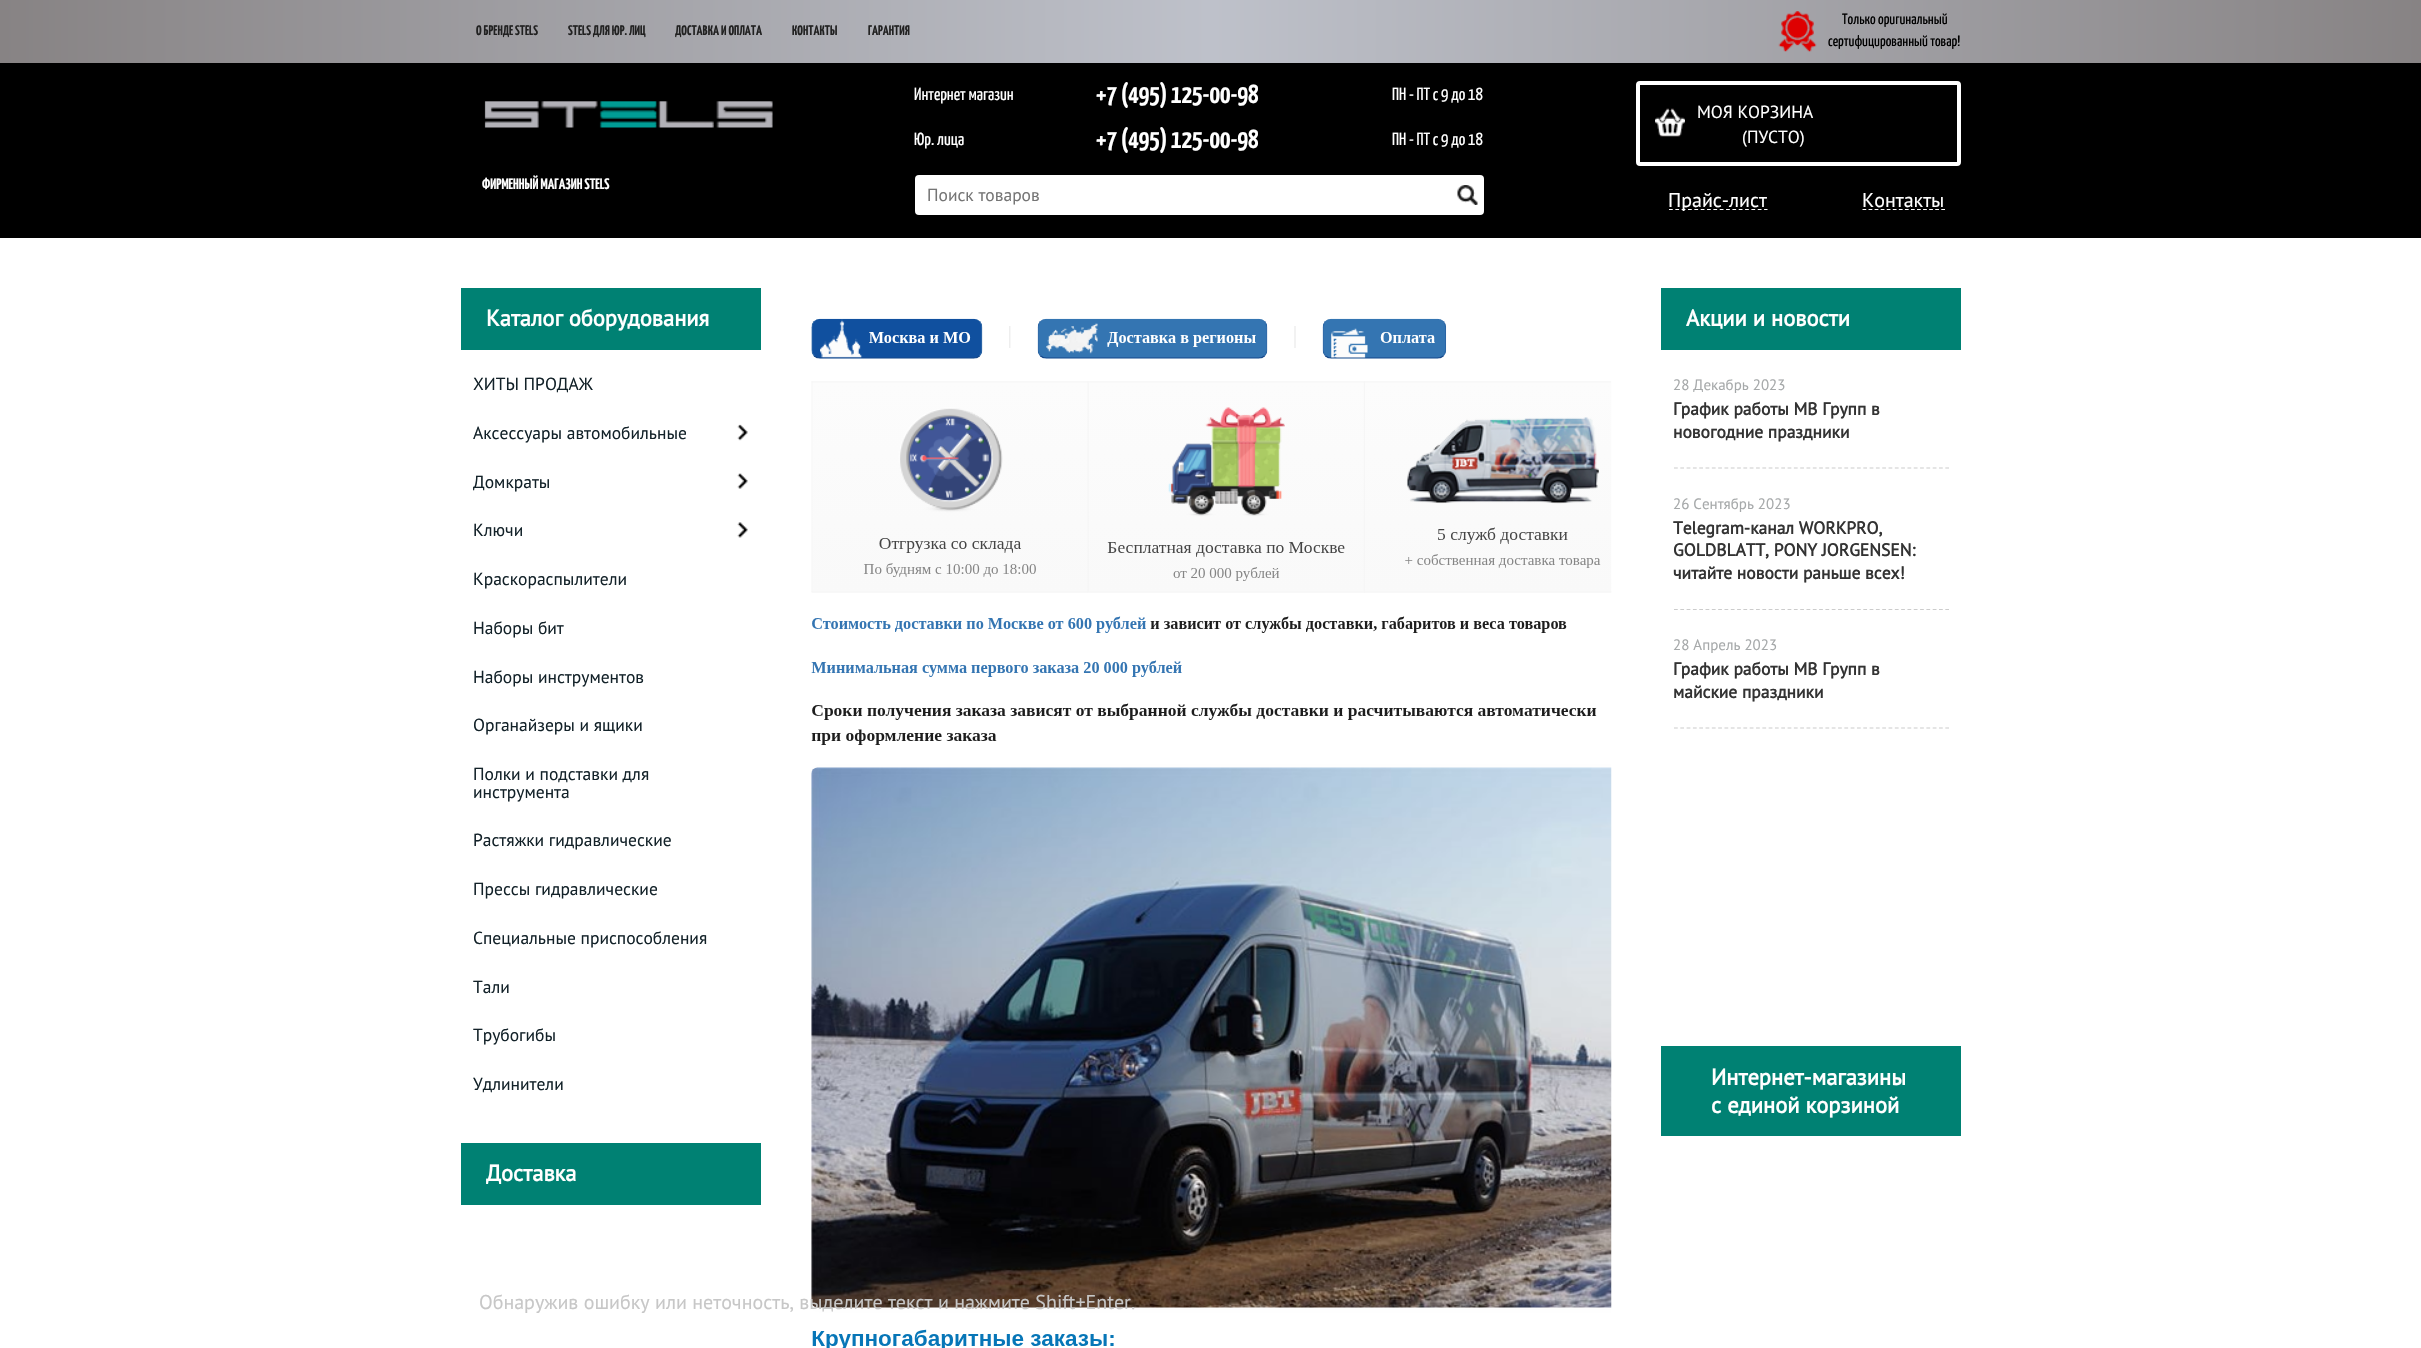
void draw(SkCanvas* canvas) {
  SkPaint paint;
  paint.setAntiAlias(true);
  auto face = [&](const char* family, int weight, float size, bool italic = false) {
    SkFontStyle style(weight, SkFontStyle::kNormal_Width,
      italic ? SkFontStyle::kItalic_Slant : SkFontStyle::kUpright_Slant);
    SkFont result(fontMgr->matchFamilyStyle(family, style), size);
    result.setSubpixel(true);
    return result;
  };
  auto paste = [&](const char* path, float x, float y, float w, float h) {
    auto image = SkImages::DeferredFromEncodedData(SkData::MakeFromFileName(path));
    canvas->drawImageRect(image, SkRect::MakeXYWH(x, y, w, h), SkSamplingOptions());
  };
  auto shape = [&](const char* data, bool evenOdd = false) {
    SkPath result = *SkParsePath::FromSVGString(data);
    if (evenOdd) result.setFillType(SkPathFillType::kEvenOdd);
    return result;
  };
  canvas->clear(0xffffffff);
  {
    const SkColor colors[] = {0xff878384, 0xffbec1ca, 0xff878384};
    const float stops[] = {0, 0.5f, 1};
    const SkPoint ends[] = {{2421, 31}, {0, 31}};
    paint.setShader(SkGradientShader::MakeLinear(ends, colors, stops, 3, SkTileMode::kClamp));
    paint.setAlpha(255);
  }
  canvas->drawRect(SkRect::MakeXYWH(0, 0, 2421, 63), paint);
  paste("img/1.png", 1778, 11, 39, 41);
  paint.setShader(nullptr);
  paint.setColor(0xff000000);
  canvas->drawRect(SkRect::MakeXYWH(0, 63, 2421, 175), paint);
  paste("img/2.png", 484, 101, 289, 27);
  paint.setColor(0xffffffff);
  canvas->drawRoundRect(SkRect::MakeXYWH(915, 175, 569, 40), 4, 4, paint);
  paste("img/3.png", 1457, 185, 21, 20);
  paint.setStroke(true);
  paint.setStrokeWidth(4);
  canvas->drawRoundRect(SkRect::MakeXYWH(1638, 83, 321, 81), 2, 2, paint);
  paste("img/4.png", 1655, 108, 30, 29);
  paint.setStrokeWidth(1.2f);
  paint.setPathEffect(SkDashPathEffect::Make({{3.75f, 2.59f}}, 0));
  canvas->drawPath(shape("M1669 209.5H1767.5"), paint);
  paint.setPathEffect(nullptr);
  paint.setPathEffect(SkDashPathEffect::Make({{3.75f, 2.31f}}, 0));
  canvas->drawPath(shape("M1862.5 209.5H1945"), paint);
  paint.setPathEffect(nullptr);
  paint.setStroke(false);
  paint.setColor(0xff008173);
  canvas->drawRect(SkRect::MakeXYWH(461, 288, 300, 62), paint);
  paste("img/5.png", 737, 424, 11, 17);
  paste("img/6.png", 737, 473, 11, 16);
  paste("img/7.png", 737, 522, 11, 16);
  canvas->drawRect(SkRect::MakeXYWH(461, 1143, 300, 62), paint);
  paste("img/8.png", 811, 318, 801, 1030);
  canvas->drawRect(SkRect::MakeXYWH(1661, 288, 300, 62), paint);
  paint.setStroke(true);
  paint.setColor(0xffcccccc);
  paint.setPathEffect(SkDashPathEffect::Make({{3.75f, 2.56f}}, 0));
  canvas->drawPath(shape("M1674 468H1949"), paint);
  paint.setPathEffect(nullptr);
  paint.setPathEffect(SkDashPathEffect::Make({{3.75f, 2.56f}}, 0));
  canvas->drawPath(shape("M1674 609.5H1949"), paint);
  paint.setPathEffect(nullptr);
  paint.setPathEffect(SkDashPathEffect::Make({{3.75f, 2.56f}}, 0));
  canvas->drawPath(shape("M1674 728H1949"), paint);
  paint.setPathEffect(nullptr);
  paint.setStroke(false);
  paint.setColor(0xff008173);
  canvas->drawRect(SkRect::MakeXYWH(1661, 1046, 300, 90), paint);
  auto f0 = face("Yanone Kaffeesatz", 700, 13.75f);
  paint.setColor(0xff212121);
  {
    const struct { const char* s; float x, y; } items[] = {
      {"О БРЕНДЕ STELS", 476, 35},
      {"STELS ДЛЯ ЮР. ЛИЦ", 568, 35},
      {"ДОСТАВКА И ОПЛАТА", 675, 35},
      {"КОНТАКТЫ", 792, 35},
      {"ГАРАНТИЯ", 868, 35},
    };
    for (auto [s, x, y] : items) {
      canvas->drawString(s, x, y, f0, paint);
    }
  }
  auto f1 = face("Yanone Kaffeesatz", 400, 15);
  paint.setColor(0xff000000);
  canvas->drawString("Только оригинальный", 1842, 24, f1, paint);
  canvas->drawString("сертифицированный товар!", 1828, 46, f1, paint);
  auto f2 = face("Yanone Kaffeesatz", 700, 15);
  paint.setColor(0xffffffff);
  canvas->drawString("ФИРМЕННЫЙ МАГАЗИН STELS", 482, 189, f2, paint);
  auto f3 = face("Yanone Kaffeesatz", 400, 17.5f);
  canvas->drawString("Интернет магазин", 914, 100, f3, paint);
  auto f4 = face("Yanone Kaffeesatz", 700, 26.25f);
  canvas->drawString("+7 (495) 125-00-98", 1096, 103, f4, paint);
  canvas->drawString("ПН - ПТ с 9 до 18", 1392, 100, f3, paint);
  canvas->drawString("Юр. лица", 914, 145, f3, paint);
  canvas->drawString("+7 (495) 125-00-98", 1096, 148, f4, paint);
  canvas->drawString("ПН - ПТ с 9 до 18", 1392, 145, f3, paint);
  auto f5 = face("PT Sans", 400, 17.5f);
  paint.setColor(0xff757575);
  canvas->drawString("Поиск товаров", 927, 201, f5, paint);
  paint.setColor(0xffffffff);
  canvas->drawString("МОЯ КОРЗИНА", 1697, 118, f5, paint);
  canvas->drawString("(ПУСТО)", 1742, 143, f5, paint);
  auto f6 = face("PT Sans", 400, 20);
  canvas->drawString("Прайс-лист", 1668, 207, f6, paint);
  canvas->drawString("Контакты", 1862, 207, f6, paint);
  auto f7 = face("PT Sans", 700, 22.5f);
  canvas->drawString("Каталог оборудования", 486, 326, f7, paint);
  paint.setColor(0xff132229);
  {
    const struct { const char* s; float x, y; } items[] = {
      {"ХИТЫ ПРОДАЖ", 473, 390},
      {"Аксессуары автомобильные", 473, 439},
      {"Домкраты", 473, 488},
      {"Ключи", 473, 536},
      {"Краскораспылители", 473, 585},
      {"Наборы бит", 473, 634},
      {"Наборы инструментов", 473, 683},
      {"Органайзеры и ящики", 473, 731},
      {"Полки и подставки для", 473, 780},
      {"инструмента", 473, 798},
      {"Растяжки гидравлические", 473, 846},
      {"Прессы гидравлические", 473, 895},
      {"Специальные приспособления", 473, 944},
      {"Тали", 473, 993},
      {"Трубогибы", 473, 1041},
      {"Удлинители", 473, 1090},
    };
    for (auto [s, x, y] : items) {
      canvas->drawString(s, x, y, f5, paint);
    }
  }
  paint.setColor(0xffffffff);
  canvas->drawString("Доставка", 486, 1181, f7, paint);
  canvas->drawString("Акции и новости", 1686, 326, f7, paint);
  auto f8 = face("PT Sans", 400, 15);
  paint.setColor(0xffa6a9aa);
  canvas->drawString("28 Декабрь 2023", 1673, 390, f8, paint);
  auto f9 = face("PT Sans", 700, 17.5f);
  paint.setColor(0xff333333);
  canvas->drawString("График работы МВ Групп в", 1673, 415, f9, paint);
  canvas->drawString("новогодние праздники", 1673, 438, f9, paint);
  paint.setColor(0xffa6a9aa);
  canvas->drawString("26 Сентябрь 2023", 1673, 509, f8, paint);
  paint.setColor(0xff333333);
  {
    const struct { const char* s; float x, y; } items[] = {
      {"Telegram-канал WORKPRO,", 1673, 534},
      {"GOLDBLATT, PONY JORGENSEN:", 1673, 556},
      {"читайте новости раньше всех!", 1673, 579},
    };
    for (auto [s, x, y] : items) {
      canvas->drawString(s, x, y, f9, paint);
    }
  }
  paint.setColor(0xffa6a9aa);
  canvas->drawString("28 Апрель 2023", 1673, 650, f8, paint);
  paint.setColor(0xff333333);
  canvas->drawString("График работы МВ Групп в", 1673, 675, f9, paint);
  canvas->drawString("майские праздники", 1673, 698, f9, paint);
  paint.setColor(0xffffffff);
  canvas->drawString("Интернет-магазины", 1711, 1085, f7, paint);
  canvas->drawString("с единой корзиной", 1711, 1113, f7, paint);
  paint.setColor(0xffc7c7c7);
  canvas->drawString("Обнаружив ошибку или неточность, выделите текст и нажмите Shift+Enter.", 479, 1309, f6, paint);
}
